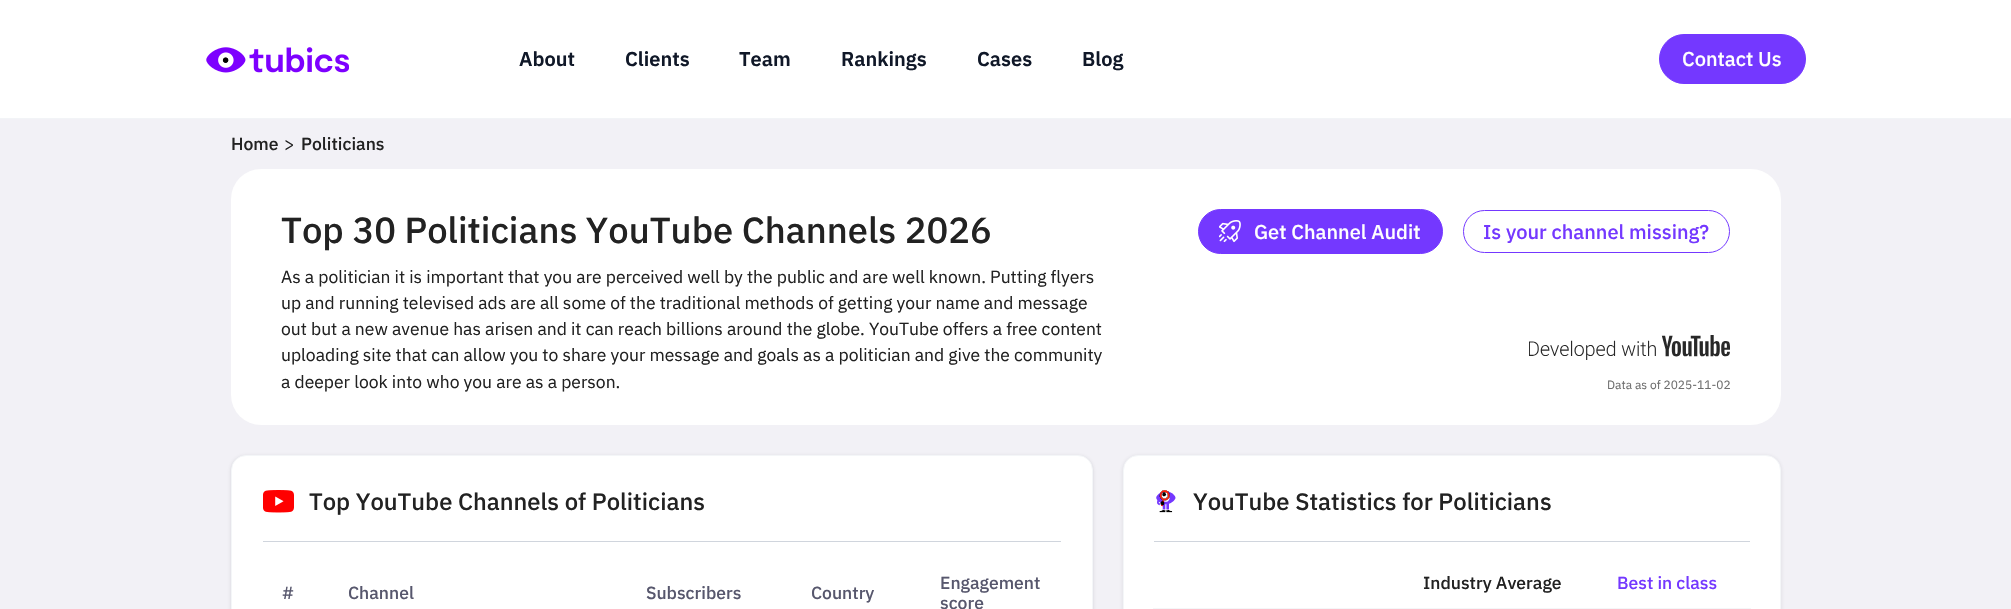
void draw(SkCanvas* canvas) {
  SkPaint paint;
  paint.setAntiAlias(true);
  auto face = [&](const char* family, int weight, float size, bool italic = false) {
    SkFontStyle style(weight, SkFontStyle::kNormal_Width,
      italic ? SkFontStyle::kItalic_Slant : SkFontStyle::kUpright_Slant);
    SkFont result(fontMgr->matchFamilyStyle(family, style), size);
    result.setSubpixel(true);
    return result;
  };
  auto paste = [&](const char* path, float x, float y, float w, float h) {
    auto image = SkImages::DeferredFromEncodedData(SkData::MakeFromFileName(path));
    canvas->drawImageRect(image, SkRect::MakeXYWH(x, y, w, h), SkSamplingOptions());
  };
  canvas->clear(0xfff2f1f6);
  paint.setColor(0xffffffff);
  canvas->drawRect(SkRect::MakeXYWH(0, 0, 2011, 118), paint);
  paint.setColor(0xfff2f4f7);
  canvas->drawRect(SkRect::MakeXYWH(0, 118, 2011, 1), paint);
  paste("img/1.png", 206, 47, 143, 26);
  paint.setColor(0xff7438ff);
  canvas->drawRoundRect(SkRect::MakeXYWH(1659.5f, 34.5f, 146, 49), 24.5f, 24.5f, paint);
  paint.setStroke(true);
  paint.setStrokeWidth(1);
  canvas->drawRoundRect(SkRect::MakeXYWH(1659.5f, 34.5f, 146, 49), 24.5f, 24.5f, paint);
  paint.setStroke(false);
  paint.setColor(0xffffffff);
  canvas->drawRoundRect(SkRect::MakeXYWH(231, 169, 1550, 256), 30, 30, paint);
  paint.setColor(0xff7438ff);
  canvas->drawRoundRect(SkRect::MakeXYWH(1198.5f, 209.5f, 244, 44), 22, 22, paint);
  paint.setStroke(true);
  canvas->drawRoundRect(SkRect::MakeXYWH(1198.5f, 209.5f, 244, 44), 22, 22, paint);
  paste("img/2.png", 1219, 220, 22, 23);
  canvas->drawRoundRect(SkRect::MakeXYWH(1463.5f, 210.5f, 266, 42), 21, 21, paint);
  paste("img/3.png", 1529, 335, 201, 25);
  paint.setStroke(false);
  paint.setColor(0x0f101828);
  paint.setMaskFilter(SkMaskFilter::MakeBlur(kNormal_SkBlurStyle, 1));
  canvas->drawRoundRect(SkRect::MakeXYWH(231, 456, 862, 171), 15, 15, paint);
  paint.setMaskFilter(nullptr);
  paint.setColor(0x1a101828);
  paint.setMaskFilter(SkMaskFilter::MakeBlur(kNormal_SkBlurStyle, 2));
  canvas->drawRoundRect(SkRect::MakeXYWH(231, 456, 862, 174), 15, 15, paint);
  paint.setMaskFilter(nullptr);
  paint.setColor(0xffffffff);
  canvas->drawRoundRect(SkRect::MakeXYWH(231.5f, 455.5f, 861, 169), 14.5f, 14.5f, paint);
  paint.setStroke(true);
  paint.setColor(0xfff4f6f8);
  canvas->drawRoundRect(SkRect::MakeXYWH(231.5f, 455.5f, 861, 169), 14.5f, 14.5f, paint);
  paste("img/4.png", 263, 490, 31, 23);
  paint.setStroke(false);
  paint.setColor(0xffd0d5dd);
  canvas->drawRect(SkRect::MakeXYWH(263, 541, 798, 1), paint);
  paint.setColor(0x1a101828);
  paint.setMaskFilter(SkMaskFilter::MakeBlur(kNormal_SkBlurStyle, 2));
  canvas->drawRoundRect(SkRect::MakeXYWH(1123, 456, 658, 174), 15, 15, paint);
  paint.setMaskFilter(nullptr);
  paint.setColor(0xffffffff);
  canvas->drawRoundRect(SkRect::MakeXYWH(1123.5f, 455.5f, 657, 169), 14.5f, 14.5f, paint);
  paint.setStroke(true);
  paint.setColor(0xfff4f6f8);
  canvas->drawRoundRect(SkRect::MakeXYWH(1123.5f, 455.5f, 657, 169), 14.5f, 14.5f, paint);
  paste("img/5.png", 1156, 490, 20, 23);
  paint.setStroke(false);
  paint.setColor(0xffd0d5dd);
  canvas->drawRect(SkRect::MakeXYWH(1154, 541, 596, 1), paint);
  paint.setColor(0xfff4f6f8);
  canvas->drawRect(SkRect::MakeXYWH(1153, 608, 598, 1), paint);
  auto f0 = face("IBM Plex Sans", 600, 20);
  paint.setColor(0xff101828);
  {
    const struct { const char* s; float x, y; } items[] = {
      {"About", 519, 66},
      {"Clients", 625, 66},
      {"Team", 739, 66},
      {"Rankings", 841, 66},
      {"Cases", 977, 66},
      {"Blog", 1082, 66},
    };
    for (auto [s, x, y] : items) {
      canvas->drawString(s, x, y, f0, paint);
    }
  }
  auto f1 = face("IBM Plex Sans", 500, 20);
  paint.setColor(0xffffffff);
  canvas->drawString("Contact Us", 1682, 66, f1, paint);
  auto f2 = face("IBM Plex Sans", 500, 17.5f);
  paint.setColor(0xff222222);
  canvas->drawString("Home", 231, 150, f2, paint);
  auto f3 = face("IBM Plex Sans", 400, 17.5f);
  canvas->drawString(">", 284, 150, f3, paint);
  canvas->drawString("Politicians", 301, 150, f2, paint);
  auto f4 = face("IBM Plex Sans", 500, 36.25f);
  canvas->drawString("Top 30 Politicians YouTube Channels 2026", 281, 243, f4, paint);
  {
    const struct { const char* s; float x, y; } items[] = {
      {"As a politician it is important that you are perceived well by the public and are well known. Putting flyers", 281, 283},
      {"up and running televised ads are all some of the traditional methods of getting your name and message", 281, 309},
      {"out but a new avenue has arisen and it can reach billions around the globe. YouTube offers a free content", 281, 335},
      {"uploading site that can allow you to share your message and goals as a politician and give the community", 281, 361},
      {"a deeper look into who you are as a person.", 281, 388},
    };
    for (auto [s, x, y] : items) {
      canvas->drawString(s, x, y, f3, paint);
    }
  }
  paint.setColor(0xffffffff);
  canvas->drawString("Get Channel Audit", 1254, 239, f1, paint);
  paint.setColor(0xff7438ff);
  canvas->drawString("Is your channel missing?", 1483, 239, f1, paint);
  auto f5 = face("IBM Plex Sans", 400, 12);
  paint.setColor(0xff6e6e6e);
  canvas->drawString("Data as of 2025-11-02", 1607, 389, f5, paint);
  auto f6 = face("IBM Plex Sans", 500, 23.75f);
  paint.setColor(0xff222222);
  canvas->drawString("Top YouTube Channels of Politicians", 309, 510, f6, paint);
  paint.setColor(0xff57576d);
  {
    const struct { const char* s; float x, y; } items[] = {
      {"#", 282, 599},
      {"Channel", 348, 599},
      {"Subscribers", 646, 599},
      {"Country", 811, 599},
      {"Engagement", 940, 589},
      {"score", 940, 609},
    };
    for (auto [s, x, y] : items) {
      canvas->drawString(s, x, y, f2, paint);
    }
  }
  paint.setColor(0xff222222);
  canvas->drawString("YouTube Statistics for Politicians", 1193, 510, f6, paint);
  canvas->drawString("Industry Average", 1423, 589, f2, paint);
  paint.setColor(0xff7438ff);
  canvas->drawString("Best in class", 1617, 589, f2, paint);
}
